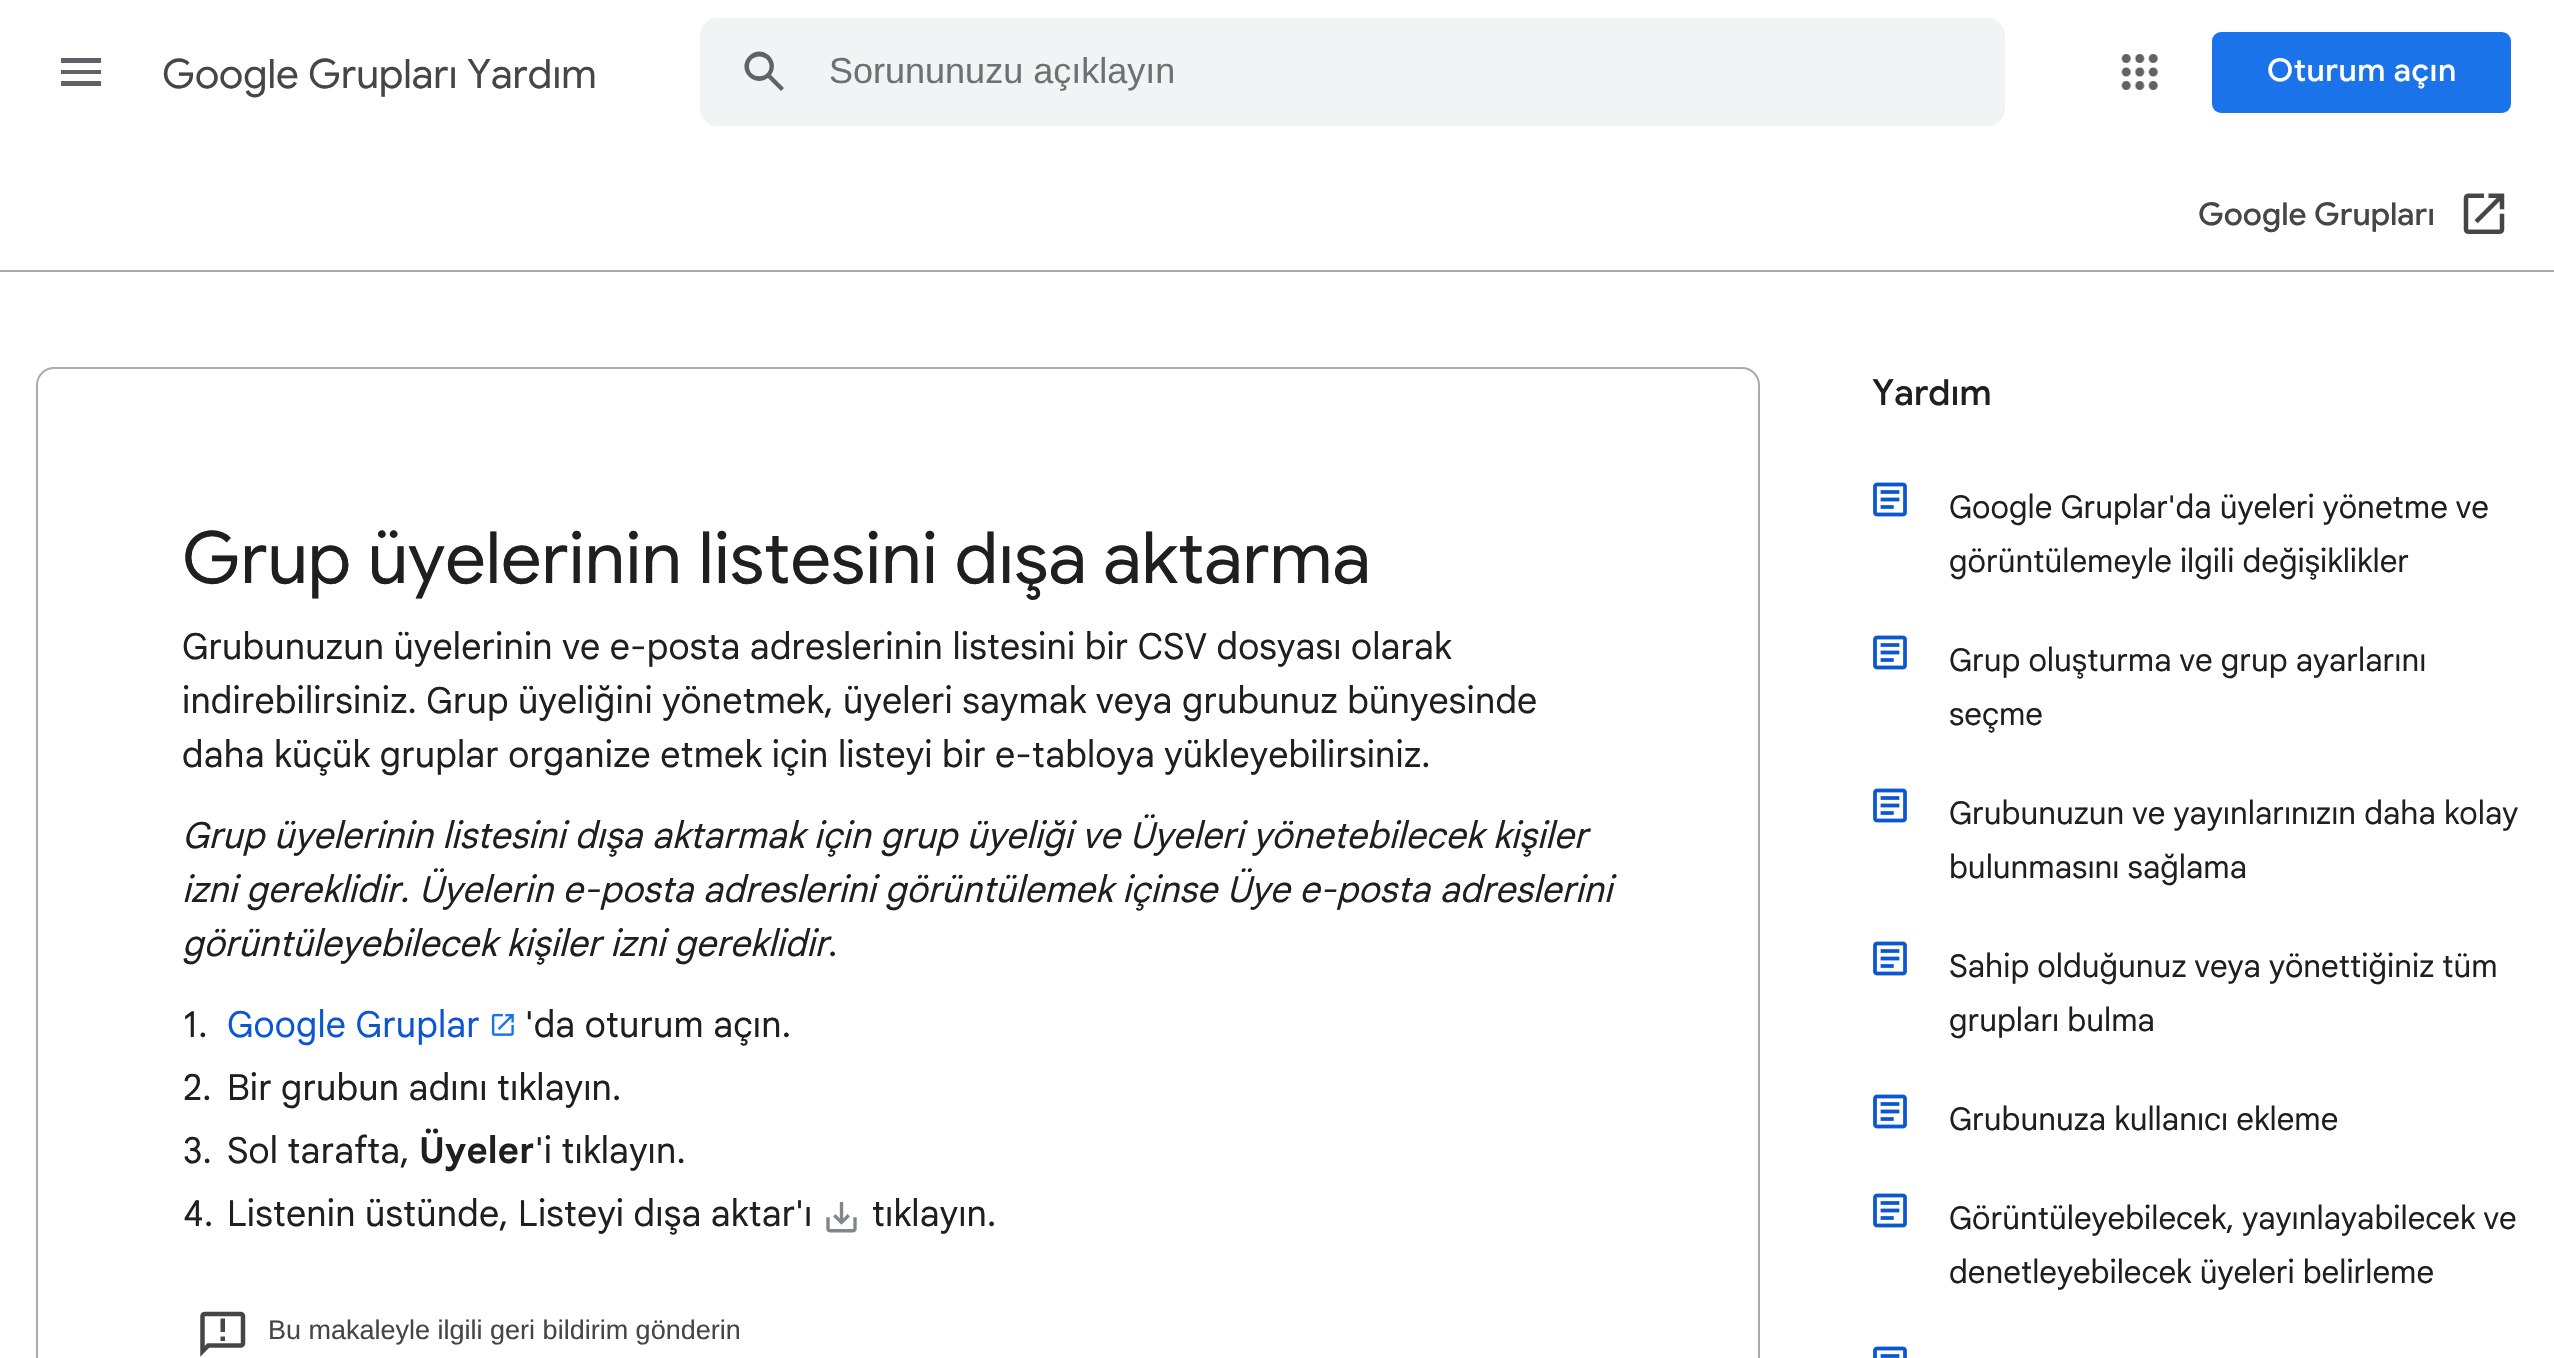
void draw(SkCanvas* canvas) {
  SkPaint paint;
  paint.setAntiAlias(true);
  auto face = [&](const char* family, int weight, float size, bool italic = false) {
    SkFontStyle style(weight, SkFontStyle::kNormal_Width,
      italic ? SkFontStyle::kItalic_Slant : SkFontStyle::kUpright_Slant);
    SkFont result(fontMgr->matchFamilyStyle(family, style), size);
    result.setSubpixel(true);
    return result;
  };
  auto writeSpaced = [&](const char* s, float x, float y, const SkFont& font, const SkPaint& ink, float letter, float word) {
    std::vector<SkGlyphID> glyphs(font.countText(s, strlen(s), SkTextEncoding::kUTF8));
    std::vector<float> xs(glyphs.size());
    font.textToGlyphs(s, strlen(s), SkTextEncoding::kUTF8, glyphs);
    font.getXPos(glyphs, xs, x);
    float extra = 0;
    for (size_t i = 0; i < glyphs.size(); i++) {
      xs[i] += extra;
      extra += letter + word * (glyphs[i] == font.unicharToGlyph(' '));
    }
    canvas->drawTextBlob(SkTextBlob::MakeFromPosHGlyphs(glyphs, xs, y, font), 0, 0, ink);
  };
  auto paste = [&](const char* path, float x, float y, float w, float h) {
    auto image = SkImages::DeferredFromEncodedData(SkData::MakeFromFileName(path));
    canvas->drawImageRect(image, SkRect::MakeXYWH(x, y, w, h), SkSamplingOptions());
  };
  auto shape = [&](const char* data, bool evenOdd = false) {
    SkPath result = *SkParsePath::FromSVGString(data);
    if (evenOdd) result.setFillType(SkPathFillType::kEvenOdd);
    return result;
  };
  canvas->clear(0xffffffff);
  paint.setColor(0xff5f6368);
  canvas->drawPath(shape("M61 86H101V81H61ZM61 74H101V70H61ZM61 58V63H101V58Z"), paint);
  paint.setColor(0xfff1f3f4);
  canvas->drawRoundRect(SkRect::MakeXYWH(700, 18, 1305, 108), 18, 18, paint);
  paint.setColor(0xff5f6368);
  canvas->drawPath(shape("M784 88L771 75C781.5 60.5 762 43 749 56C736 69 753.5 88.5 768 78L781 91ZM749 66.5C749 53 769.5 53 769.5 66.5C769.5 79.5 749 79.5 749 66.5Z"), paint);
  paste("img/1.png", 2121, 54, 37, 36);
  paint.setColor(0xff1a73e8);
  canvas->drawRoundRect(SkRect::MakeXYWH(2212, 32, 299, 81), 9, 9, paint);
  paint.setColor(0xffa9acaa);
  canvas->drawRect(SkRect::MakeXYWH(0, 270, 2554, 2), paint);
  paste("img/2.png", 2463, 193, 42, 41);
  paint.setStroke(true);
  paint.setStrokeWidth(2);
  canvas->drawRoundRect(SkRect::MakeXYWH(37, 368, 1722, 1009), 17, 17, paint);
  paste("img/3.png", 491, 1013, 23, 23);
  paste("img/4.png", 826, 1202, 31, 31);
  paste("img/5.png", 200, 1311, 46, 46);
  paste("img/6.png", 1873, 482, 34, 35);
  paste("img/6.png", 1873, 635, 34, 35);
  paste("img/6.png", 1873, 788, 34, 35);
  paste("img/6.png", 1873, 941, 34, 35);
  paste("img/6.png", 1873, 1094, 34, 35);
  paste("img/6.png", 1873, 1193, 34, 35);
  paste("img/7.png", 1873, 1346, 34, 12);
  auto f0 = face("Google Sans", 400, 40.5f);
  paint.setStroke(false);
  paint.setColor(0xff444746);
  canvas->drawString("Google Grupları Yardım", 162, 88, f0, paint);
  auto f1 = face("Liberation Sans", 400, 36);
  paint.setColor(0xff6f7070);
  canvas->drawString("Sorununuzu açıklayın", 829, 83, f1, paint);
  auto f2 = face("Google Sans", 500, 31.5f);
  paint.setColor(0xffffffff);
  writeSpaced("Oturum açın", 2267, 81, f2, paint, 0.5f, 0);
  paint.setColor(0xff444746);
  canvas->drawString("Google Grupları", 2198, 225, f2, paint);
  auto f3 = face("Google Sans", 400, 72);
  paint.setColor(0xff1f1f1f);
  canvas->drawString("Grup üyelerinin listesini dışa aktarma", 182, 583, f3, paint);
  auto f4 = face("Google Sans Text", 400, 36);
  {
    const struct { const char* s; float x, y; } items[] = {
      {"Grubunuzun üyelerinin ve e-posta adreslerinin listesini bir CSV dosyası olarak", 182, 659},
      {"indirebilirsiniz. Grup üyeliğini yönetmek, üyeleri saymak veya grubunuz bünyesinde", 182, 713},
      {"daha küçük gruplar organize etmek için listeyi bir e-tabloya yükleyebilirsiniz.", 182, 767},
    };
    for (auto [s, x, y] : items) {
      writeSpaced(s, x, y, f4, paint, 0.18f, 0);
    }
  }
  auto f5 = face("Google Sans Text", 400, 36, true);
  {
    const struct { const char* s; float x, y; } items[] = {
      {"Grup üyelerinin listesini dışa aktarmak için grup üyeliği ve Üyeleri yönetebilecek kişiler", 182, 848},
      {"izni gereklidir. Üyelerin e-posta adreslerini görüntülemek içinse Üye e-posta adreslerini", 182, 902},
      {"görüntüleyebilecek kişiler izni gereklidir", 182, 956},
    };
    for (auto [s, x, y] : items) {
      writeSpaced(s, x, y, f5, paint, 0.18f, 0);
    }
  }
  writeSpaced(".", 828, 956, f4, paint, 0.18f, 0);
  writeSpaced("1.", 183, 1037, f4, paint, 0.18f, 0);
  paint.setColor(0xff0b57d0);
  writeSpaced("Google Gruplar", 227, 1037, f4, paint, 0.18f, 0);
  paint.setColor(0xff1f1f1f);
  {
    const struct { const char* s; float x, y; } items[] = {
      {"'da oturum açın.", 525, 1037},
      {"2.", 183, 1100},
      {"Bir grubun adını tıklayın.", 227, 1100},
      {"3.", 183, 1163},
      {"Sol tarafta,", 227, 1163},
    };
    for (auto [s, x, y] : items) {
      writeSpaced(s, x, y, f4, paint, 0.18f, 0);
    }
  }
  auto f6 = face("Google Sans Text", 700, 36);
  writeSpaced("Üyeler", 419, 1163, f6, paint, 0.18f, 0);
  {
    const struct { const char* s; float x, y; } items[] = {
      {"'i tıklayın.", 535, 1163},
      {"4.", 183, 1226},
      {"Listenin üstünde, Listeyi dışa aktar'ı", 227, 1226},
      {"tıklayın.", 872, 1226},
    };
    for (auto [s, x, y] : items) {
      writeSpaced(s, x, y, f4, paint, 0.18f, 0);
    }
  }
  auto f7 = face("Liberation Sans", 400, 27);
  paint.setColor(0xff444746);
  canvas->drawString("Bu makaleyle ilgili geri bildirim gönderin", 268, 1339, f7, paint);
  auto f8 = face("Google Sans", 500, 36);
  paint.setColor(0xff1f1f1f);
  canvas->drawString("Yardım", 1872, 405, f8, paint);
  auto f9 = face("Google Sans Text", 400, 31.5f);
  {
    const struct { const char* s; float x, y; } items[] = {
      {"Google Gruplar'da üyeleri yönetme ve", 1949, 518},
      {"görüntülemeyle ilgili değişiklikler", 1949, 572},
      {"Grup oluşturma ve grup ayarlarını", 1949, 671},
      {"seçme", 1949, 725},
      {"Grubunuzun ve yayınlarınızın daha kolay", 1949, 824},
      {"bulunmasını sağlama", 1949, 878},
      {"Sahip olduğunuz veya yönettiğiniz tüm", 1949, 977},
      {"grupları bulma", 1949, 1031},
      {"Grubunuza kullanıcı ekleme", 1949, 1130},
      {"Görüntüleyebilecek, yayınlayabilecek ve", 1949, 1229},
      {"denetleyebilecek üyeleri belirleme", 1949, 1283},
    };
    for (auto [s, x, y] : items) {
      canvas->drawString(s, x, y, f9, paint);
    }
  }
}
